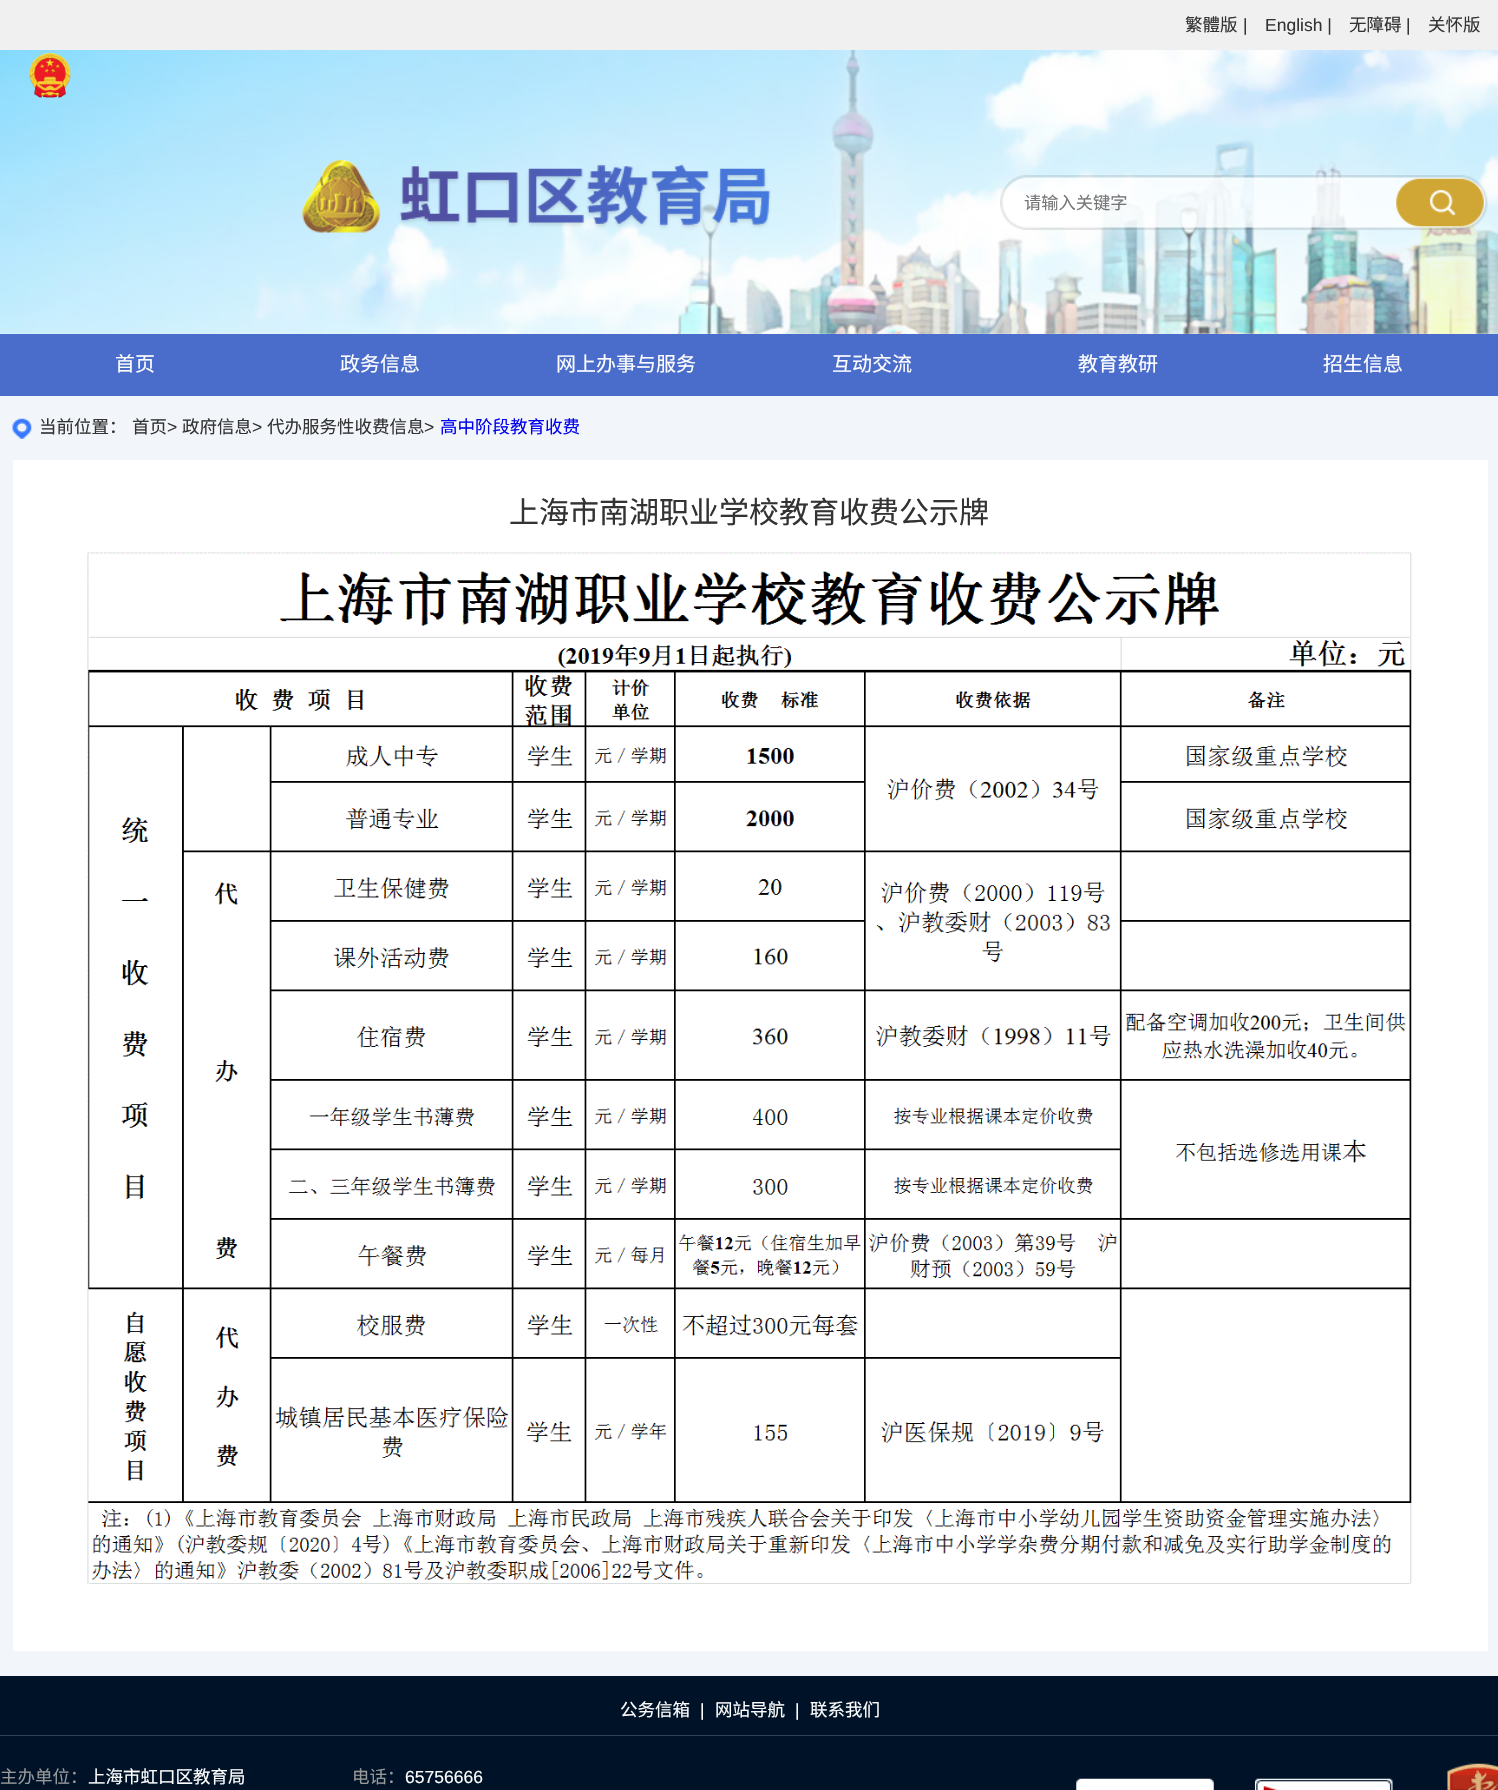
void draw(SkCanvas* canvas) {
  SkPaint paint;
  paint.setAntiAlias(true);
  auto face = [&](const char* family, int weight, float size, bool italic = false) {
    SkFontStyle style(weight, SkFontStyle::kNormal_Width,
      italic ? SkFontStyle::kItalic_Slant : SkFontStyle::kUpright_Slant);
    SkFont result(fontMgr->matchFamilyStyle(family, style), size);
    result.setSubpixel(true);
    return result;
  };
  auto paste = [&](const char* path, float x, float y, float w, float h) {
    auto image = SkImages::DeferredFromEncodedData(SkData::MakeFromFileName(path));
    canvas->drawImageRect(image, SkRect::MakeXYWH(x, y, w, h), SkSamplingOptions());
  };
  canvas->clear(0xfff2f5fa);
  paint.setColor(0xfff0f0f0);
  canvas->drawRect(SkRect::MakeXYWH(0, 0, 1498, 50), paint);
  paste("img/2.png", 0, 50, 1498, 284);
  paste("img/1.png", 29, 53, 42, 45);
  paste("img/3.png", 302, 160, 469, 73);
  paste("img/4.png", 1000, 175, 488, 55);
  paint.setColor(0xff4a6dcb);
  canvas->drawRect(SkRect::MakeXYWH(0, 334, 1498, 62), paint);
  paste("img/5.png", 12, 418, 20, 21);
  paint.setColor(0xffffffff);
  canvas->drawRect(SkRect::MakeXYWH(13, 460, 1475, 1191), paint);
  paste("img/6.png", 87, 552, 1325, 1032);
  paint.setColor(0xff001227);
  canvas->drawRect(SkRect::MakeXYWH(0, 1676, 1498, 114), paint);
  paint.setColor(0xff334152);
  canvas->drawRect(SkRect::MakeXYWH(0, 1735, 1498, 1), paint);
  paste("img/7.png", 1076, 1778, 138, 12);
  paste("img/8.png", 1255, 1778, 138, 12);
  paste("img/9.png", 1447, 1763, 51, 27);
  auto f0 = face("Noto Sans CJK SC", 400, 17.5f);
  paint.setColor(0xff333333);
  canvas->drawString("繁體版", 1185, 31, f0, paint);
  auto f1 = face("Liberation Sans", 400, 17.5f);
  canvas->drawString("|", 1243, 31, f1, paint);
  canvas->drawString("English |", 1265, 31, f1, paint);
  canvas->drawString("无障碍", 1349, 31, f0, paint);
  canvas->drawString("|", 1406, 31, f1, paint);
  canvas->drawString("关怀版", 1428, 31, f0, paint);
  auto f2 = face("Noto Sans CJK SC", 400, 17.25f);
  paint.setColor(0xff757575);
  canvas->drawString("请输入关键字", 1024, 209, f2, paint);
  auto f3 = face("Noto Sans CJK SC", 400, 20);
  paint.setColor(0xffffffff);
  {
    const struct { const char* s; float x, y; } items[] = {
      {"首页", 115, 371},
      {"政务信息", 340, 371},
      {"网上办事与服务", 556, 371},
      {"互动交流", 832, 371},
      {"教育教研", 1078, 371},
      {"招生信息", 1323, 371},
    };
    for (auto [s, x, y] : items) {
      canvas->drawString(s, x, y, f3, paint);
    }
  }
  paint.setColor(0xff333333);
  canvas->drawString("当前位置：", 39, 433, f0, paint);
  canvas->drawString("首页", 132, 433, f0, paint);
  canvas->drawString(">", 167, 433, f1, paint);
  canvas->drawString("政府信息", 182, 433, f0, paint);
  canvas->drawString(">", 252, 433, f1, paint);
  canvas->drawString("代办服务性收费信息", 267, 433, f0, paint);
  canvas->drawString(">", 424, 433, f1, paint);
  paint.setColor(0xff0000ee);
  canvas->drawString("高中阶段教育收费", 440, 433, f0, paint);
  auto f4 = face("Noto Sans CJK SC", 400, 30);
  paint.setColor(0xff333333);
  canvas->drawString("上海市南湖职业学校教育收费公示牌", 509, 523, f4, paint);
  paint.setColor(0xffffffff);
  canvas->drawString("公务信箱", 620, 1716, f0, paint);
  canvas->drawString("|", 700, 1716, f1, paint);
  canvas->drawString("网站导航", 715, 1716, f0, paint);
  canvas->drawString("|", 795, 1716, f1, paint);
  canvas->drawString("联系我们", 810, 1716, f0, paint);
  paint.setColor(0xff999999);
  canvas->drawString("主办单位：", 0, 1783, f0, paint);
  paint.setColor(0xffffffff);
  canvas->drawString("上海市虹口区教育局", 88, 1783, f0, paint);
  paint.setColor(0xff999999);
  canvas->drawString("电话：", 352, 1783, f0, paint);
  paint.setColor(0xffffffff);
  canvas->drawString("65756666", 405, 1783, f1, paint);
}
